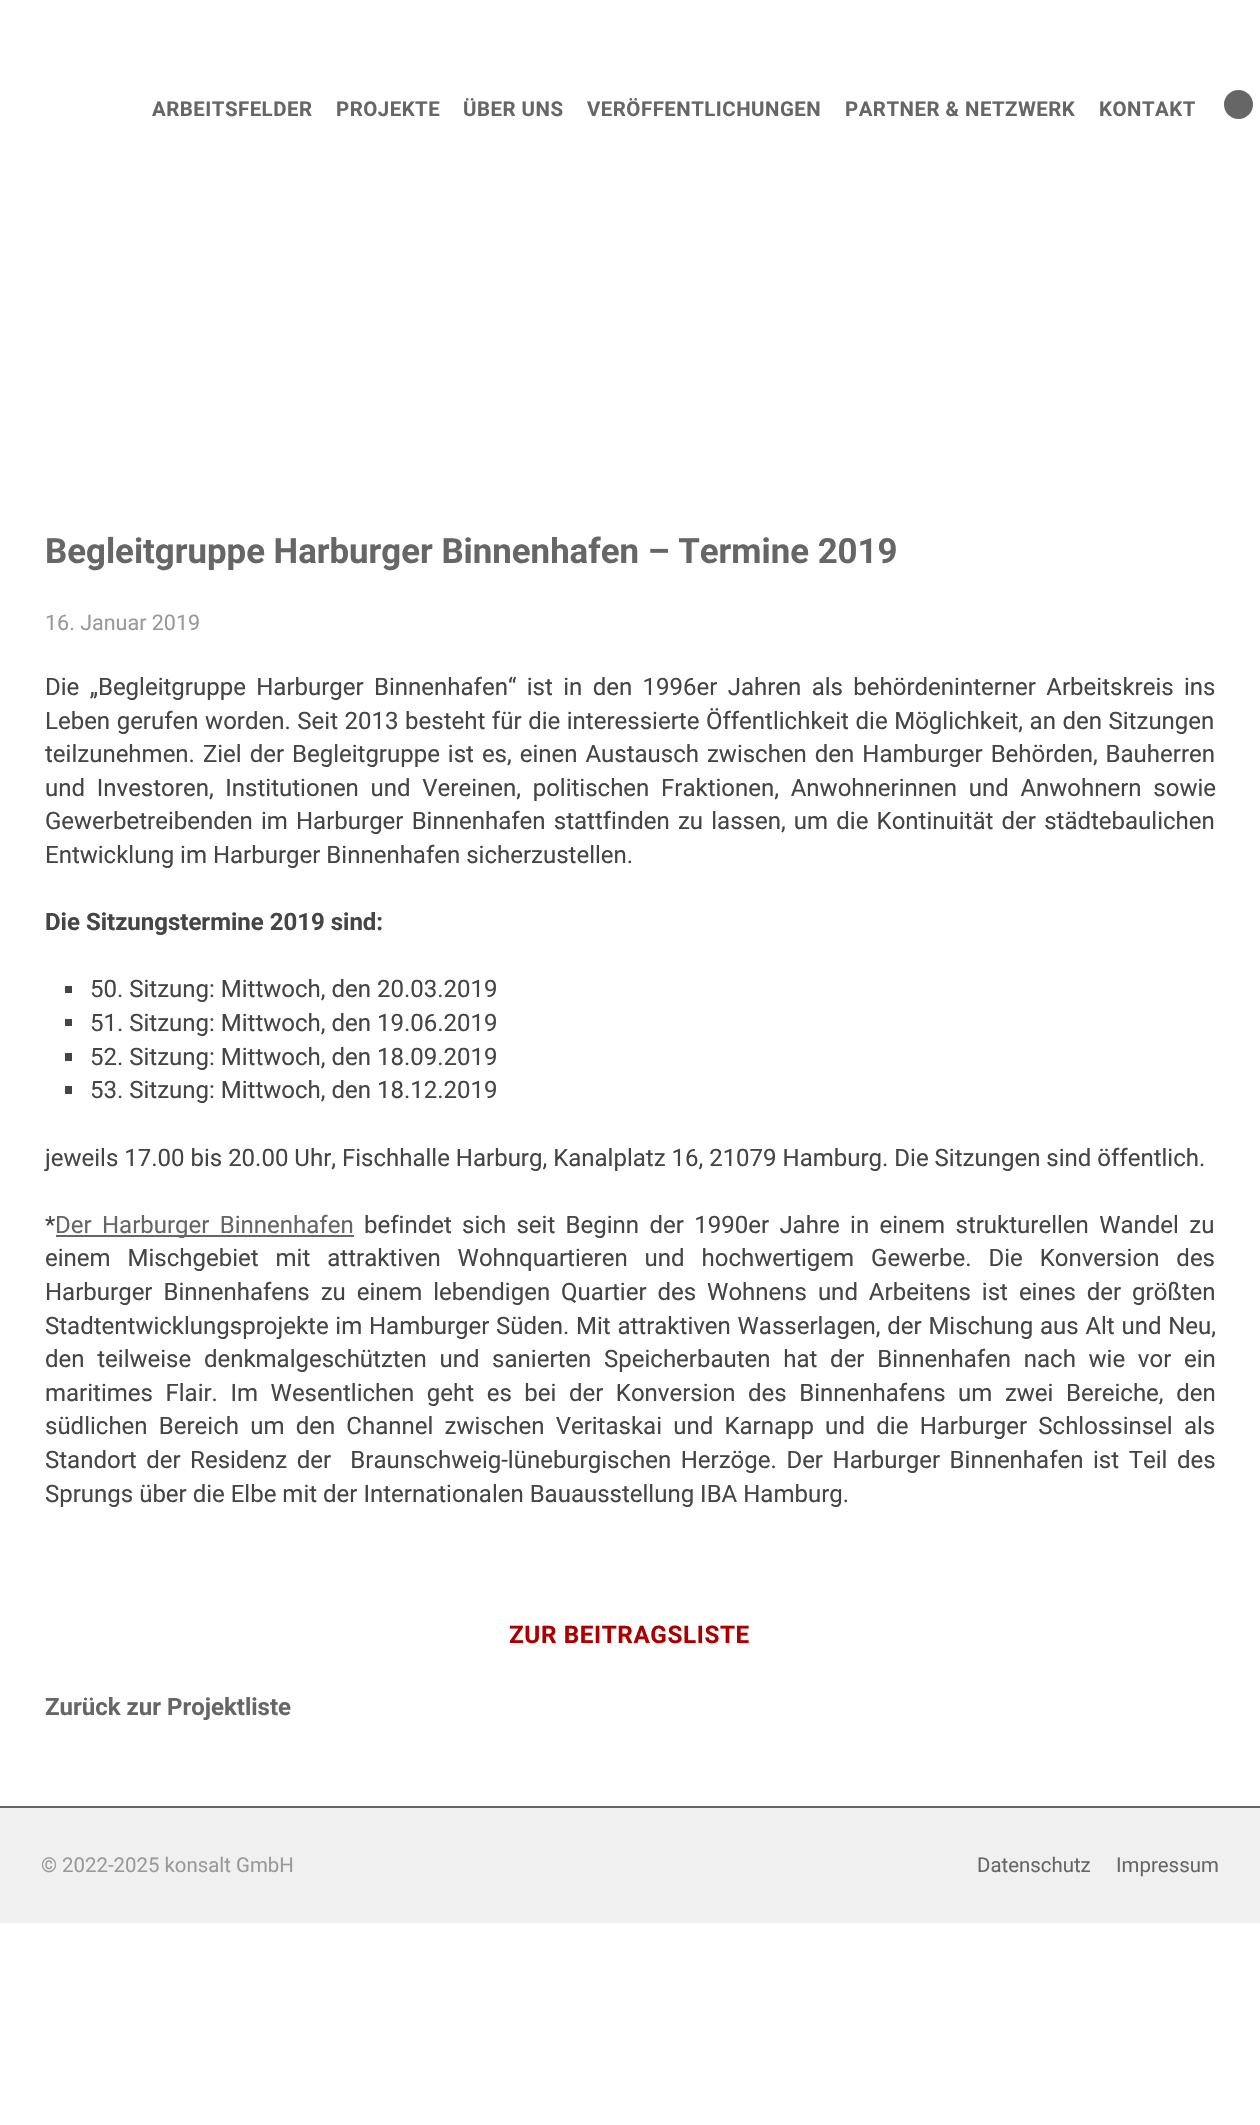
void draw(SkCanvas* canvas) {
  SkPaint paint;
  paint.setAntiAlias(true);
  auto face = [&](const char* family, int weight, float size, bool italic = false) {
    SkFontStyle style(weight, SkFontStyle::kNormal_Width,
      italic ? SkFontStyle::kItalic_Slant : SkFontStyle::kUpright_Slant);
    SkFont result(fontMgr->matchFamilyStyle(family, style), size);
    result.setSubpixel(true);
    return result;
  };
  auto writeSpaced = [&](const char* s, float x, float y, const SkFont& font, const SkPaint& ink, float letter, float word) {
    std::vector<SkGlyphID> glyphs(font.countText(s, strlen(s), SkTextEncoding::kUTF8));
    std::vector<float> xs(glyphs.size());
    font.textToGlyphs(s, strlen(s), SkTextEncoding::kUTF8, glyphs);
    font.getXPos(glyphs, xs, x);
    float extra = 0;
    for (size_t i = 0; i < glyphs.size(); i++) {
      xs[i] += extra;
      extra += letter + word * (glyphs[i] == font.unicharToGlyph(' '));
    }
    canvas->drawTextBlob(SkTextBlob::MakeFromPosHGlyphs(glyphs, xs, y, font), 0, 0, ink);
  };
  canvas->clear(0xffffffff);
  paint.setColor(0xff666666);
  canvas->drawCircle(1238.5f, 104.5f, 14.5f, paint);
  {
    const struct { float x, y, w, h; SkColor color; } items[] = {
      {65, 986, 7, 7, 0xff474444},
      {65, 1019, 7, 7, 0xff474444},
      {65, 1053, 7, 8, 0xff474444},
      {65, 1086, 7, 8, 0xff474444},
      {56, 1235, 298, 2, 0xff666666},
      {0, 1808, 1260, 115, 0xfff0f0f0},
      {0, 1806, 1260, 2, 0xff666666},
    };
    for (auto [x, y, w, h, color] : items) {
      paint.setColor(color);
      canvas->drawRect(SkRect::MakeXYWH(x, y, w, h), paint);
    }
  }
  auto f0 = face("Roboto", 700, 20.4f);
  {
    const struct { const char* s; float x, y; } items[] = {
      {"ARBEITSFELDER", 152, 116},
      {"PROJEKTE", 336, 116},
      {"ÜBER UNS", 463, 116},
      {"VERÖFFENTLICHUNGEN", 587, 116},
      {"PARTNER & NETZWERK", 845, 116},
      {"KONTAKT", 1099, 116},
    };
    for (auto [s, x, y] : items) {
      writeSpaced(s, x, y, f0, paint, 0.5f, 0);
    }
  }
  auto f1 = face("Roboto", 700, 34.8f);
  canvas->drawString("Begleitgruppe Harburger Binnenhafen – Termine 2019", 45, 563, f1, paint);
  auto f2 = face("Roboto", 400, 21.5f);
  paint.setColor(0xff999999);
  canvas->drawString("16. Januar 2019", 45, 630, f2, paint);
  auto f3 = face("Roboto", 400, 24);
  paint.setColor(0xff474444);
  writeSpaced("Die „Begleitgruppe Harburger Binnenhafen“ ist in den 1996er Jahren als behördeninterner Arbeitskreis ins", 45, 695, f3, paint, 0, 4.4f);
  writeSpaced("Leben gerufen worden. Seit 2013 besteht für die interessierte Öffentlichkeit die Möglichkeit, an den Sitzungen", 45, 729, f3, paint, 0, 0.6f);
  writeSpaced("teilzunehmen. Ziel der Begleitgruppe ist es, einen Austausch zwischen den Hamburger Behörden, Bauherren", 45, 762, f3, paint, 0, 2);
  writeSpaced("und Investoren, Institutionen und Vereinen, politischen Fraktionen, Anwohnerinnen und Anwohnern sowie", 45, 796, f3, paint, 0, 5.75f);
  writeSpaced("Gewerbetreibenden im Harburger Binnenhafen stattfinden zu lassen, um die Kontinuität der städtebaulichen", 45, 829, f3, paint, 0, 2.25f);
  canvas->drawString("Entwicklung im Harburger Binnenhafen sicherzustellen.", 45, 863, f3, paint);
  auto f4 = face("Roboto", 700, 24);
  canvas->drawString("Die Sitzungstermine 2019 sind:", 45, 930, f4, paint);
  {
    const struct { const char* s; float x, y; } items[] = {
      {"50. Sitzung: Mittwoch, den 20.03.2019", 90, 997},
      {"51. Sitzung: Mittwoch, den 19.06.2019", 90, 1031},
      {"52. Sitzung: Mittwoch, den 18.09.2019", 90, 1065},
      {"53. Sitzung: Mittwoch, den 18.12.2019", 90, 1098},
      {"jeweils 17.00 bis 20.00 Uhr, Fischhalle Harburg, Kanalplatz 16, 21079 Hamburg. Die Sitzungen sind öffentlich.", 45, 1166},
      {"*", 45, 1233},
    };
    for (auto [s, x, y] : items) {
      canvas->drawString(s, x, y, f3, paint);
    }
  }
  paint.setColor(0xff666666);
  writeSpaced("Der Harburger Binnenhafen", 55, 1233, f3, paint, 0, 4.4f);
  paint.setColor(0xff474444);
  writeSpaced("befindet sich seit Beginn der 1990er Jahre in einem strukturellen Wandel zu", 364, 1233, f3, paint, 0, 4.4f);
  writeSpaced("einem Mischgebiet mit attraktiven Wohnquartieren und hochwertigem Gewerbe. Die Konversion des", 45, 1266, f3, paint, 0, 11);
  writeSpaced("Harburger Binnenhafens zu einem lebendigen Quartier des Wohnens und Arbeitens ist eines der größten", 45, 1300, f3, paint, 0, 5);
  writeSpaced("Stadtentwicklungsprojekte im Hamburger Süden. Mit attraktiven Wasserlagen, der Mischung aus Alt und Neu,", 45, 1334, f3, paint, 0, 0.75f);
  writeSpaced("den teilweise denkmalgeschützten und sanierten Speicherbauten hat der Binnenhafen nach wie vor ein", 45, 1367, f3, paint, 0, 6.75f);
  writeSpaced("maritimes Flair. Im Wesentlichen geht es bei der Konversion des Binnenhafens um zwei Bereiche, den", 45, 1401, f3, paint, 0, 6.6f);
  writeSpaced("südlichen Bereich um den Channel zwischen Veritaskai und Karnapp und die Harburger Schlossinsel als", 45, 1434, f3, paint, 0, 5.25f);
  writeSpaced("Standort der Residenz der  Braunschweig-lüneburgischen Herzöge. Der Harburger Binnenhafen ist Teil des", 45, 1468, f3, paint, 0, 3.6f);
  canvas->drawString("Sprungs über die Elbe mit der Internationalen Bauausstellung IBA Hamburg.", 45, 1502, f3, paint);
  auto f5 = face("Roboto", 700, 24.25f);
  paint.setColor(0xffaa0000);
  writeSpaced("ZUR BEITRAGSLISTE", 509, 1643, f5, paint, 0.6f, 0);
  paint.setColor(0xff666666);
  canvas->drawString("Zurück zur Projektliste", 45, 1715, f4, paint);
  auto f6 = face("Roboto", 400, 20.4f);
  paint.setColor(0xff999999);
  canvas->drawString("© 2022-2025 konsalt GmbH", 41, 1872, f6, paint);
  paint.setColor(0xff666666);
  canvas->drawString("Datenschutz", 977, 1872, f6, paint);
  canvas->drawString("Impressum", 1116, 1872, f6, paint);
}
